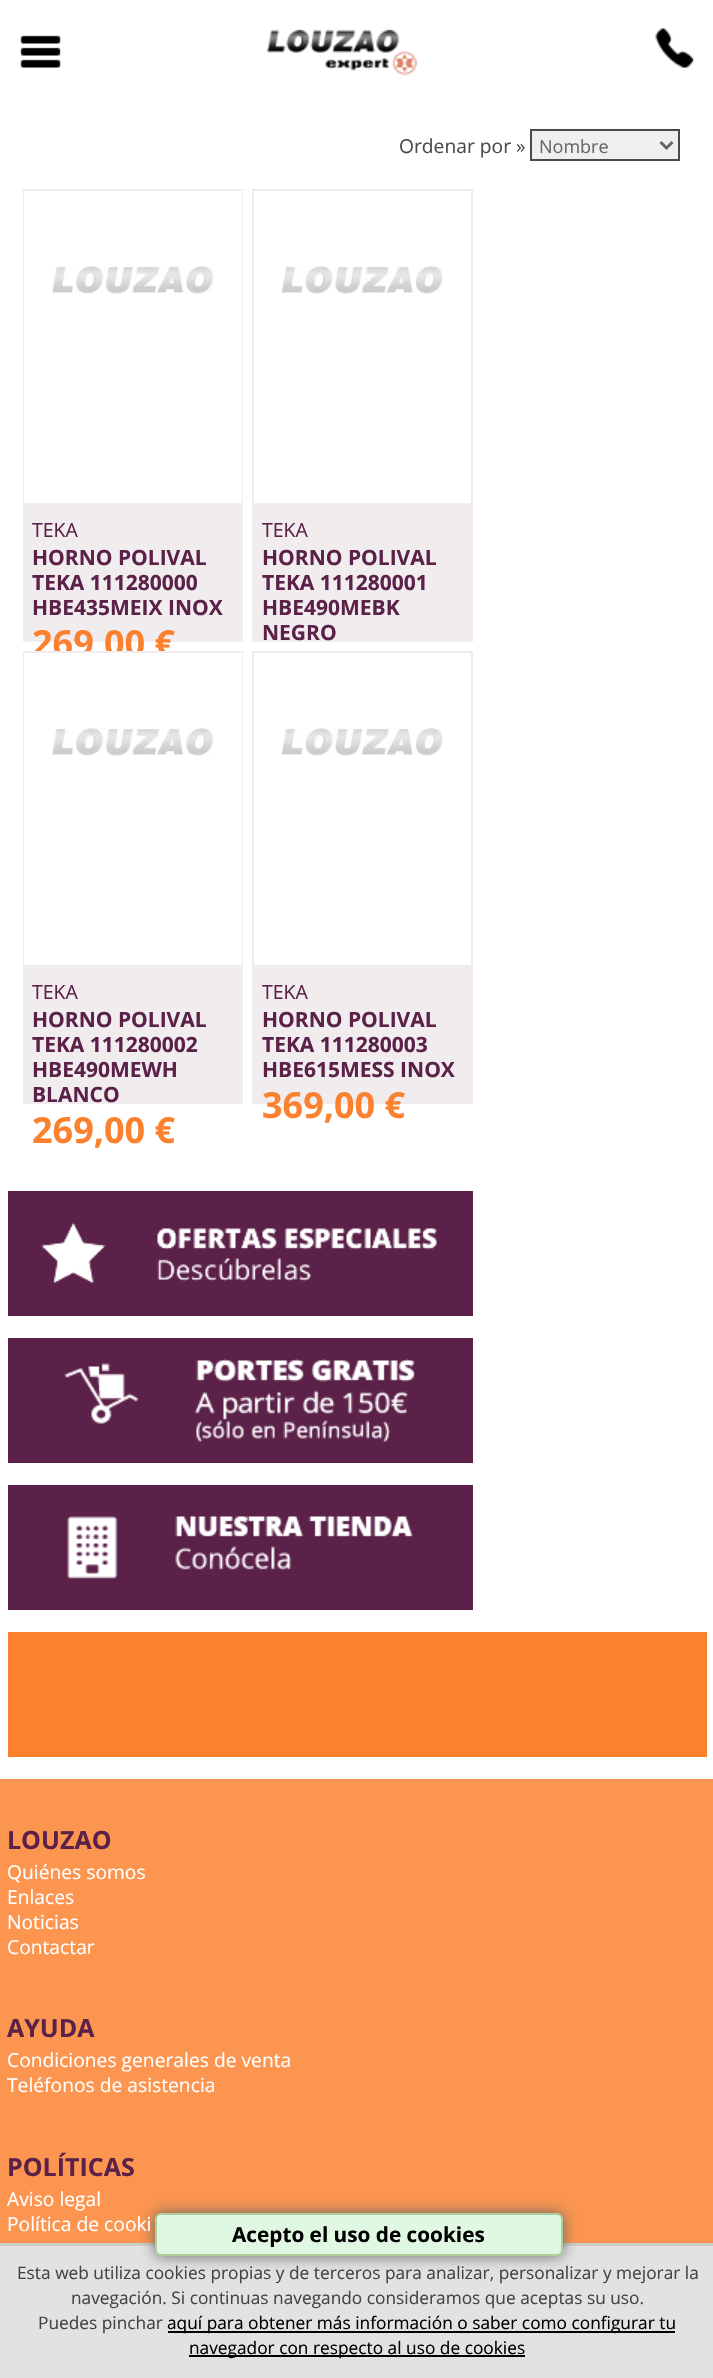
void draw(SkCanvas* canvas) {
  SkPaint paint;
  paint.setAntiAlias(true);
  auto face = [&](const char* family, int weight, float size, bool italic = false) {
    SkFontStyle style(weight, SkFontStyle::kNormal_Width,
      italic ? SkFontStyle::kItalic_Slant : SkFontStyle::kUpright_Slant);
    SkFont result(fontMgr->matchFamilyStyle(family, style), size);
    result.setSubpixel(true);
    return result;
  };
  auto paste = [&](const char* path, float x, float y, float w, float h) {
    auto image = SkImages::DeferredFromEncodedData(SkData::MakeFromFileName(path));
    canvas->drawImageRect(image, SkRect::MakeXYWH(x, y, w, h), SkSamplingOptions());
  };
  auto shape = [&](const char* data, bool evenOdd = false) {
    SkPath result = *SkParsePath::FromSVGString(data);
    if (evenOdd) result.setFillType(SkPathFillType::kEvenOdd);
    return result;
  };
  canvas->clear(0xffffffff);
  paste("img/1.png", 20, 35, 41, 33);
  paste("img/2.png", 266, 29, 152, 47);
  paste("img/3.png", 655, 28, 39, 40);
  paint.setColor(0xffefefef);
  canvas->drawRect(SkRect::MakeXYWH(531, 130, 148, 30), paint);
  paint.setStroke(true);
  paint.setStrokeWidth(2);
  paint.setColor(0xff4a4a4a);
  canvas->drawRect(SkRect::MakeXYWH(531, 130, 148, 30), paint);
  paint.setStrokeWidth(3);
  paint.setColor(0xff666666);
  canvas->drawPath(shape("M660.5 142L666.5 148L672.5 142"), paint);
  paint.setStroke(false);
  paint.setColor(0xfff1ecee);
  canvas->drawRect(SkRect::MakeXYWH(23, 189, 220, 453), paint);
  paint.setColor(0xffffffff);
  canvas->drawRect(SkRect::MakeXYWH(24, 191, 218, 312), paint);
  paste("img/4.png", 52, 266, 162, 28);
  paint.setColor(0xfff1ecee);
  canvas->drawRect(SkRect::MakeXYWH(252, 189, 221, 453), paint);
  paint.setColor(0xffffffff);
  canvas->drawRect(SkRect::MakeXYWH(254, 191, 217, 312), paint);
  paste("img/5.png", 281, 266, 162, 28);
  paint.setColor(0xfff1ecee);
  canvas->drawRect(SkRect::MakeXYWH(252, 651, 221, 453), paint);
  paint.setColor(0xffffffff);
  canvas->drawRect(SkRect::MakeXYWH(254, 653, 217, 312), paint);
  paste("img/5.png", 281, 728, 162, 28);
  paint.setColor(0xff5b2149);
  canvas->drawRect(SkRect::MakeXYWH(8, 1191, 465, 125), paint);
  paste("img/6.png", 41, 1222, 396, 61);
  canvas->drawRect(SkRect::MakeXYWH(8, 1338, 465, 125), paint);
  paste("img/7.png", 64, 1358, 351, 84);
  canvas->drawRect(SkRect::MakeXYWH(8, 1485, 465, 125), paint);
  paste("img/8.png", 67, 1516, 346, 63);
  {
    const struct { float x, y, w, h; SkColor color; } items[] = {
      {8, 1632, 699, 125, 0xfffb812f},
      {0, 1779, 713, 464, 0xfffc9550},
      {0, 2246, 713, 132, 0xffe2e2e2},
      {0, 2243, 713, 3, 0xffcccccc},
    };
    for (auto [x, y, w, h, color] : items) {
      paint.setColor(color);
      canvas->drawRect(SkRect::MakeXYWH(x, y, w, h), paint);
    }
  }
  paint.setColor(0xff666666);
  paint.setMaskFilter(SkMaskFilter::MakeBlur(kNormal_SkBlurStyle, 7.5f));
  canvas->drawRoundRect(SkRect::MakeXYWH(155, 2213, 408, 43), 6, 6, paint);
  paint.setMaskFilter(nullptr);
  paint.setColor(0xffe0f8e1);
  canvas->drawRoundRect(SkRect::MakeXYWH(156, 2214, 406, 41), 5, 5, paint);
  paint.setStroke(true);
  paint.setStrokeWidth(2);
  paint.setColor(0xffabd09b);
  canvas->drawRoundRect(SkRect::MakeXYWH(156, 2214, 406, 41), 5, 5, paint);
  paint.setStroke(false);
  paint.setColor(0xff000000);
  canvas->drawRect(SkRect::MakeXYWH(168, 2331, 507, 2), paint);
  canvas->drawRect(SkRect::MakeXYWH(189, 2355, 336, 2), paint);
  auto f0 = face("Open Sans", 400, 19.25f);
  paint.setColor(0xff4a4a4a);
  canvas->drawString("Ordenar por »", 399, 153, f0, paint);
  auto f1 = face("Open Sans", 400, 18);
  paint.setColor(0xff666666);
  canvas->drawString("Nombre", 539, 153, f1, paint);
  auto f2 = face("Open Sans", 400, 19.5f);
  paint.setColor(0xff5b2149);
  canvas->drawString("TEKA", 32, 537, f2, paint);
  auto f3 = face("Open Sans", 700, 21);
  {
    const struct { const char* s; float x, y; } items[] = {
      {"HORNO POLIVAL", 32, 565},
      {"TEKA 111280000", 32, 590},
      {"HBE435MEIX INOX", 32, 615},
    };
    for (auto [s, x, y] : items) {
      canvas->drawString(s, x, y, f3, paint);
    }
  }
  auto f4 = face("Open Sans", 700, 36);
  paint.setColor(0xfffb812f);
  canvas->drawString("269,00 €", 32, 656, f4, paint);
  paint.setColor(0xff5b2149);
  canvas->drawString("TEKA", 262, 537, f2, paint);
  {
    const struct { const char* s; float x, y; } items[] = {
      {"HORNO POLIVAL", 262, 565},
      {"TEKA 111280001", 262, 590},
      {"HBE490MEBK", 262, 615},
      {"NEGRO", 262, 640},
    };
    for (auto [s, x, y] : items) {
      canvas->drawString(s, x, y, f3, paint);
    }
  }
  paint.setColor(0xfff1ecee);
  canvas->drawRect(SkRect::MakeXYWH(23, 651, 220, 453), paint);
  paint.setColor(0xffffffff);
  canvas->drawRect(SkRect::MakeXYWH(24, 653, 218, 312), paint);
  paste("img/4.png", 52, 728, 162, 28);
  paint.setColor(0xff5b2149);
  canvas->drawString("TEKA", 32, 999, f2, paint);
  {
    const struct { const char* s; float x, y; } items[] = {
      {"HORNO POLIVAL", 32, 1027},
      {"TEKA 111280002", 32, 1052},
      {"HBE490MEWH", 32, 1077},
      {"BLANCO", 32, 1102},
    };
    for (auto [s, x, y] : items) {
      canvas->drawString(s, x, y, f3, paint);
    }
  }
  paint.setColor(0xfffb812f);
  canvas->drawString("269,00 €", 32, 1143, f4, paint);
  paint.setColor(0xff5b2149);
  canvas->drawString("TEKA", 262, 999, f2, paint);
  {
    const struct { const char* s; float x, y; } items[] = {
      {"HORNO POLIVAL", 262, 1027},
      {"TEKA 111280003", 262, 1052},
      {"HBE615MESS INOX", 262, 1077},
    };
    for (auto [s, x, y] : items) {
      canvas->drawString(s, x, y, f3, paint);
    }
  }
  paint.setColor(0xfffb812f);
  canvas->drawString("369,00 €", 262, 1118, f4, paint);
  auto f5 = face("Open Sans", 700, 25);
  paint.setColor(0xff5b2149);
  canvas->drawString("LOUZAO", 7, 1849, f5, paint);
  paint.setColor(0xffffffff);
  {
    const struct { const char* s; float x, y; } items[] = {
      {"Quiénes somos", 7, 1879},
      {"Enlaces", 7, 1904},
      {"Noticias", 7, 1929},
      {"Contactar", 7, 1954},
    };
    for (auto [s, x, y] : items) {
      canvas->drawString(s, x, y, f0, paint);
    }
  }
  paint.setColor(0xff5b2149);
  canvas->drawString("AYUDA", 7, 2037, f5, paint);
  paint.setColor(0xffffffff);
  canvas->drawString("Condiciones generales de venta", 7, 2067, f0, paint);
  canvas->drawString("Teléfonos de asistencia", 7, 2092, f0, paint);
  paint.setColor(0xff5b2149);
  canvas->drawString("POLÍTICAS", 7, 2176, f5, paint);
  paint.setColor(0xffffffff);
  canvas->drawString("Aviso legal", 7, 2206, f0, paint);
  canvas->drawString("Política de cooki", 7, 2231, f0, paint);
  auto f6 = face("Open Sans", 700, 20.75f);
  paint.setColor(0xff000000);
  canvas->drawString("Acepto el uso de cookies", 232, 2242, f6, paint);
  auto f7 = face("Open Sans", 400, 17.3f);
  paint.setColor(0xff444444);
  {
    const struct { const char* s; float x, y; } items[] = {
      {"Esta web utiliza cookies propias y de terceros para analizar, personalizar y mejorar la", 17, 2279},
      {"navegación. Si continuas navegando consideramos que aceptas su uso.", 71, 2304},
      {"Puedes pinchar", 38, 2329},
    };
    for (auto [s, x, y] : items) {
      canvas->drawString(s, x, y, f7, paint);
    }
  }
  paint.setColor(0xff000000);
  canvas->drawString("aquí para obtener más información o saber como configurar tu", 167, 2329, f7, paint);
  canvas->drawString("navegador con respecto al uso de cookies", 189, 2354, f7, paint);
}
